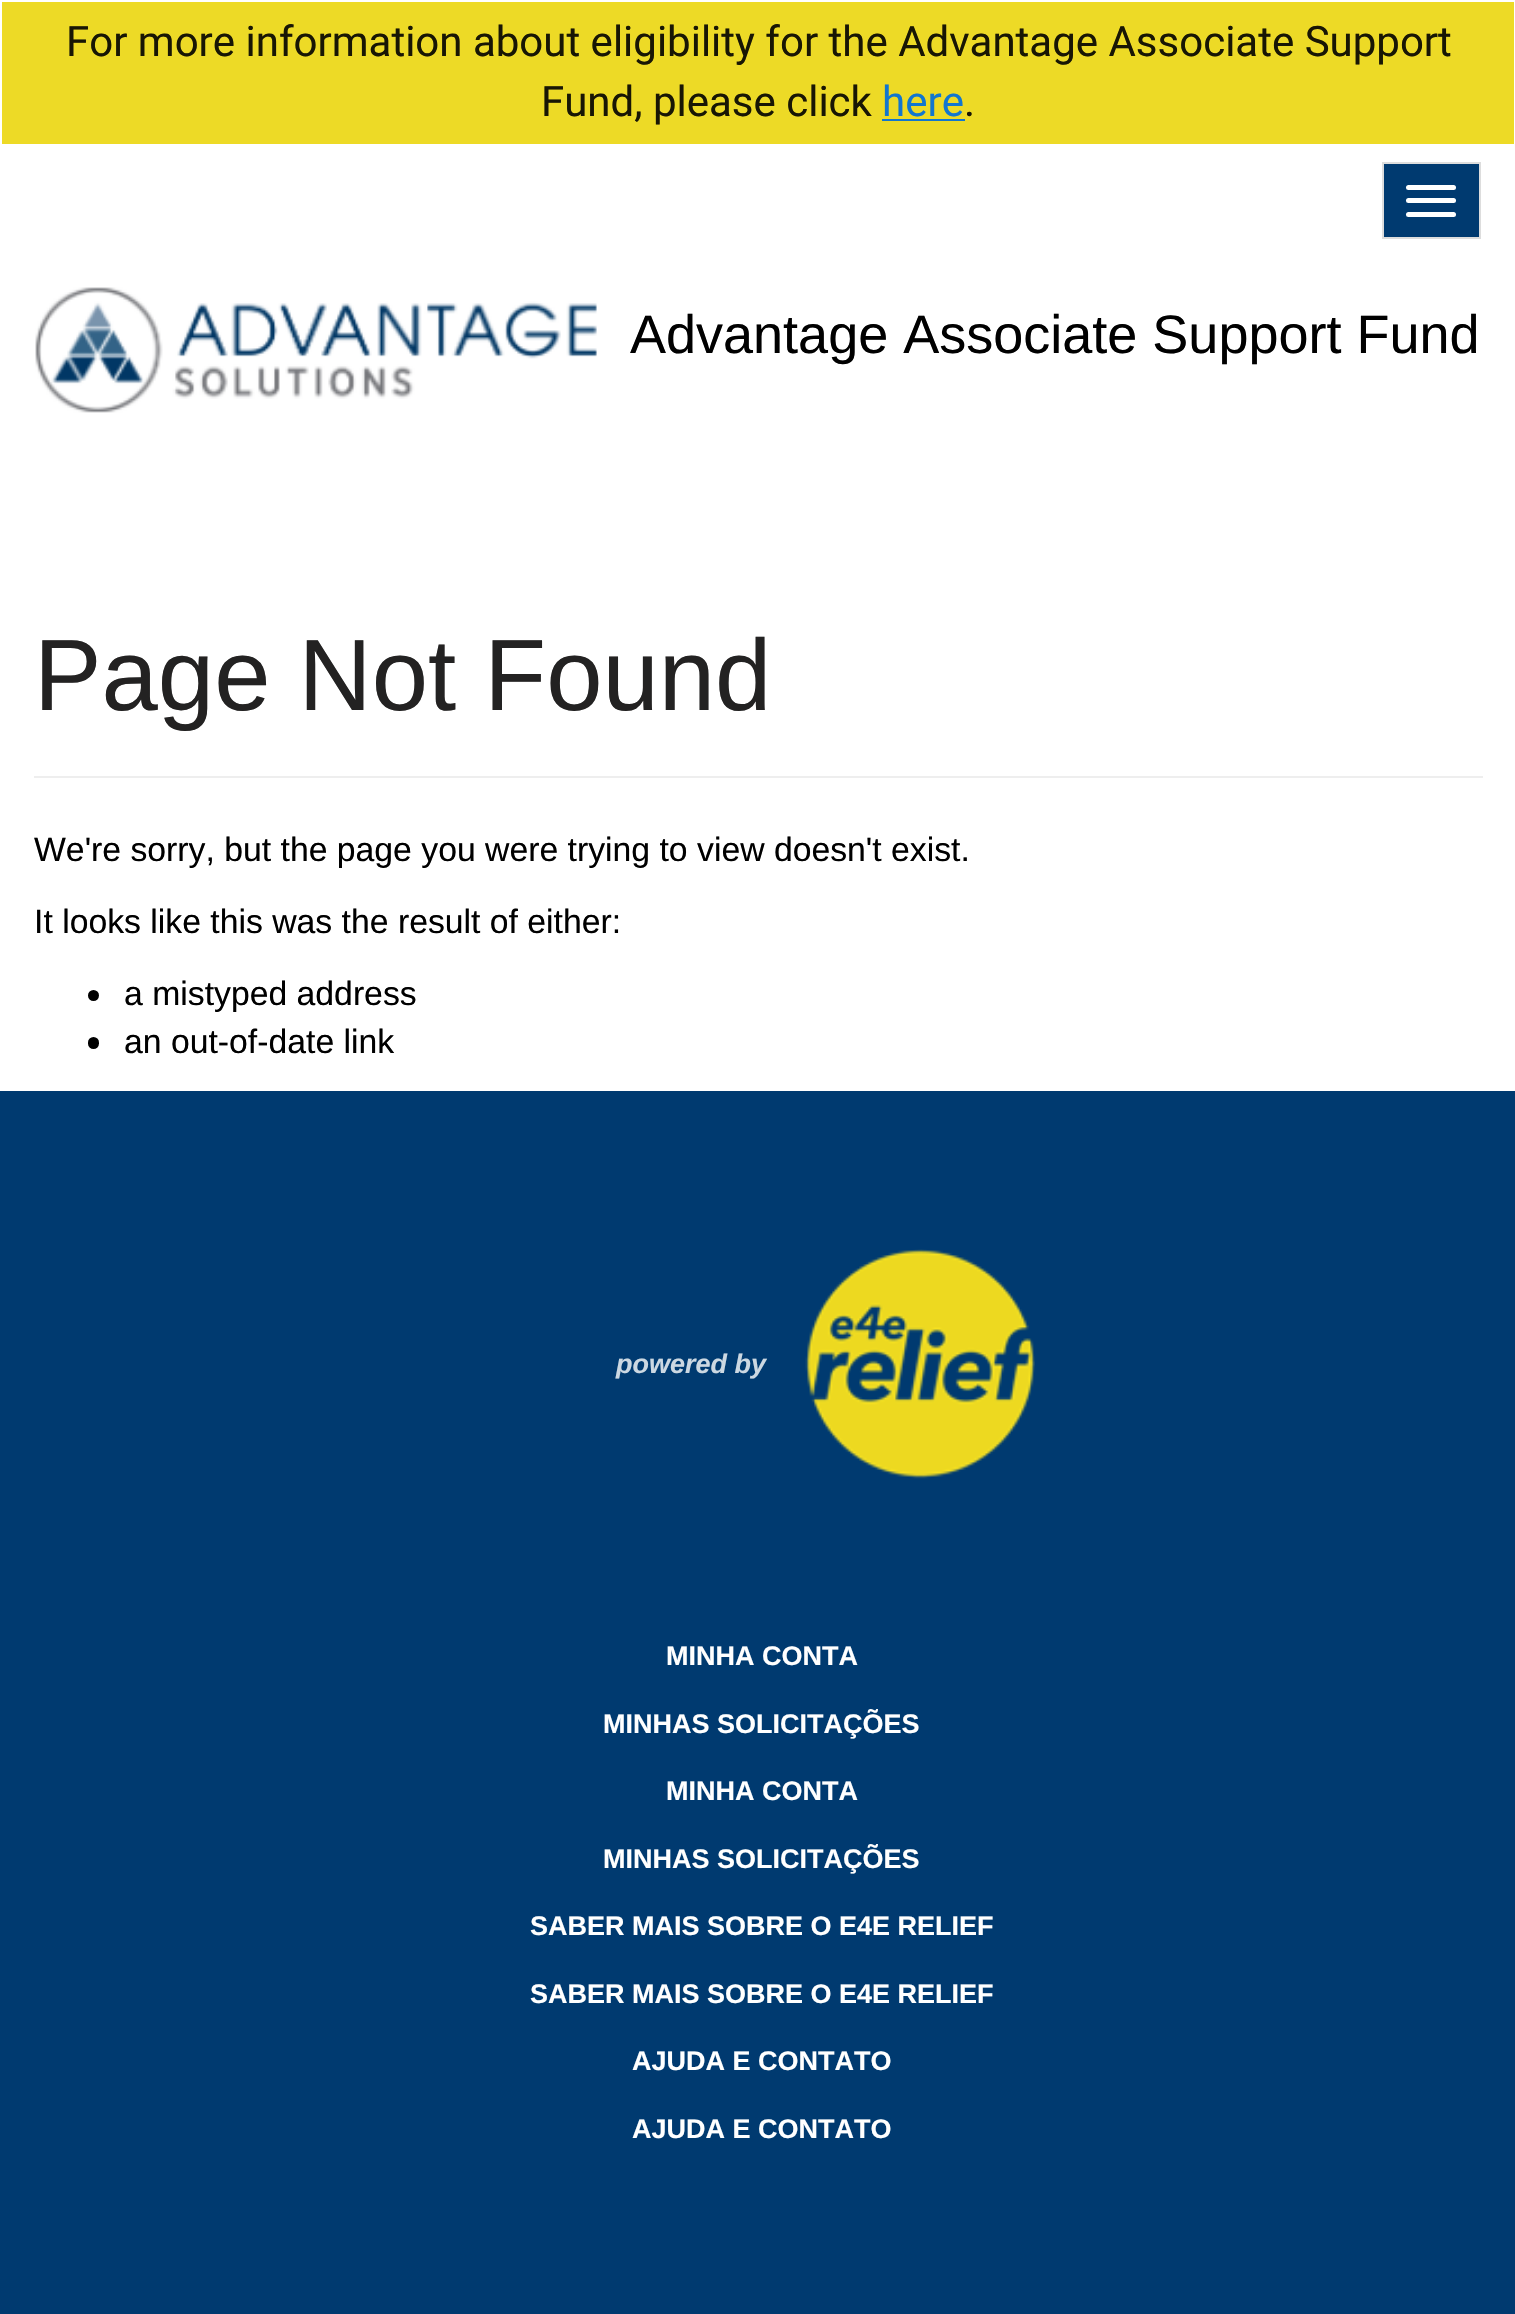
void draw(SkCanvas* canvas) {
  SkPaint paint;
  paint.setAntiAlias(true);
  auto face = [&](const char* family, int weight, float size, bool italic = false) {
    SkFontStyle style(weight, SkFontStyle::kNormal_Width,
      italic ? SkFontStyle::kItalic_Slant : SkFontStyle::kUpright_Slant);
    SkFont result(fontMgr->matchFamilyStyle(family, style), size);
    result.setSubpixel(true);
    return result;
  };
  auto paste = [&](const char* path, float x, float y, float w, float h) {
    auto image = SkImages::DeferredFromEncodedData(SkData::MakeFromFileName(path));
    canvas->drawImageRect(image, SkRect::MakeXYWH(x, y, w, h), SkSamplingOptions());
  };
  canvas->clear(0xffffffff);
  paint.setColor(0xffedda26);
  canvas->drawRect(SkRect::MakeXYWH(2, 2, 1512, 142), paint);
  paint.setColor(0xff1276ce);
  canvas->drawRect(SkRect::MakeXYWH(882, 119, 83, 2), paint);
  paint.setColor(0xff003a70);
  canvas->drawRect(SkRect::MakeXYWH(1383, 163, 97, 75), paint);
  paint.setStroke(true);
  paint.setStrokeWidth(2);
  paint.setColor(0xffdddddd);
  canvas->drawRect(SkRect::MakeXYWH(1383, 163, 97, 75), paint);
  paint.setStroke(false);
  paint.setColor(0xffffffff);
  canvas->drawRoundRect(SkRect::MakeXYWH(1406, 185, 50, 5), 2.5f, 2.5f, paint);
  canvas->drawRoundRect(SkRect::MakeXYWH(1406, 198, 50, 5), 2.5f, 2.5f, paint);
  canvas->drawRoundRect(SkRect::MakeXYWH(1406, 212, 50, 5), 2.5f, 2.5f, paint);
  paste("img/1.png", 35, 287, 562, 126);
  paint.setColor(0xffeeeeee);
  canvas->drawRect(SkRect::MakeXYWH(34, 776, 1449, 2), paint);
  paint.setColor(0xff000000);
  canvas->drawCircle(93.5f, 995.5f, 5.5f, paint);
  canvas->drawRoundRect(SkRect::MakeXYWH(88, 1037, 11, 12), 5.5f, 5.5f, paint);
  paint.setColor(0xff003a70);
  canvas->drawRect(SkRect::MakeXYWH(0, 1091, 1515, 1223), paint);
  paste("img/2.png", 805, 1249, 230, 230);
  auto f0 = face("Roboto", 400, 42);
  paint.setColor(0xff181604);
  canvas->drawString("For more information about eligibility for the Advantage Associate Support", 66, 56, f0, paint);
  canvas->drawString("Fund, please click", 541, 116, f0, paint);
  paint.setColor(0xff1276ce);
  canvas->drawString("here", 882, 116, f0, paint);
  paint.setColor(0xff181604);
  canvas->drawString(".", 964, 116, f0, paint);
  auto f1 = face("Liberation Sans", 400, 54);
  paint.setColor(0xff000000);
  canvas->drawString("Advantage Associate Support Fund", 630, 353, f1, paint);
  auto f2 = face("Liberation Sans", 400, 101.25f);
  paint.setColor(0xff232222);
  canvas->drawString("Page Not Found", 34, 710, f2, paint);
  auto f3 = face("Liberation Sans", 400, 33.75f);
  paint.setColor(0xff000000);
  {
    const struct { const char* s; float x, y; } items[] = {
      {"We're sorry, but the page you were trying to view doesn't exist.", 34, 861},
      {"It looks like this was the result of either:", 34, 933},
      {"a mistyped address", 124, 1005},
      {"an out-of-date link", 124, 1053},
    };
    for (auto [s, x, y] : items) {
      canvas->drawString(s, x, y, f3, paint);
    }
  }
  auto f4 = face("Liberation Sans", 700, 27, true);
  paint.setColor(0xffccd8e2);
  canvas->drawString("powered by", 616, 1373, f4, paint);
  auto f5 = face("Liberation Sans", 700, 27);
  paint.setColor(0xffffffff);
  {
    const struct { const char* s; float x, y; } items[] = {
      {"MINHA CONTA", 666, 1665},
      {"MINHAS SOLICITAÇÕES", 603, 1733},
      {"MINHA CONTA", 666, 1800},
      {"MINHAS SOLICITAÇÕES", 603, 1868},
      {"SABER MAIS SOBRE O E4E RELIEF", 530, 1935},
      {"SABER MAIS SOBRE O E4E RELIEF", 530, 2003},
      {"AJUDA E CONTATO", 632, 2070},
      {"AJUDA E CONTATO", 632, 2138},
    };
    for (auto [s, x, y] : items) {
      canvas->drawString(s, x, y, f5, paint);
    }
  }
}
